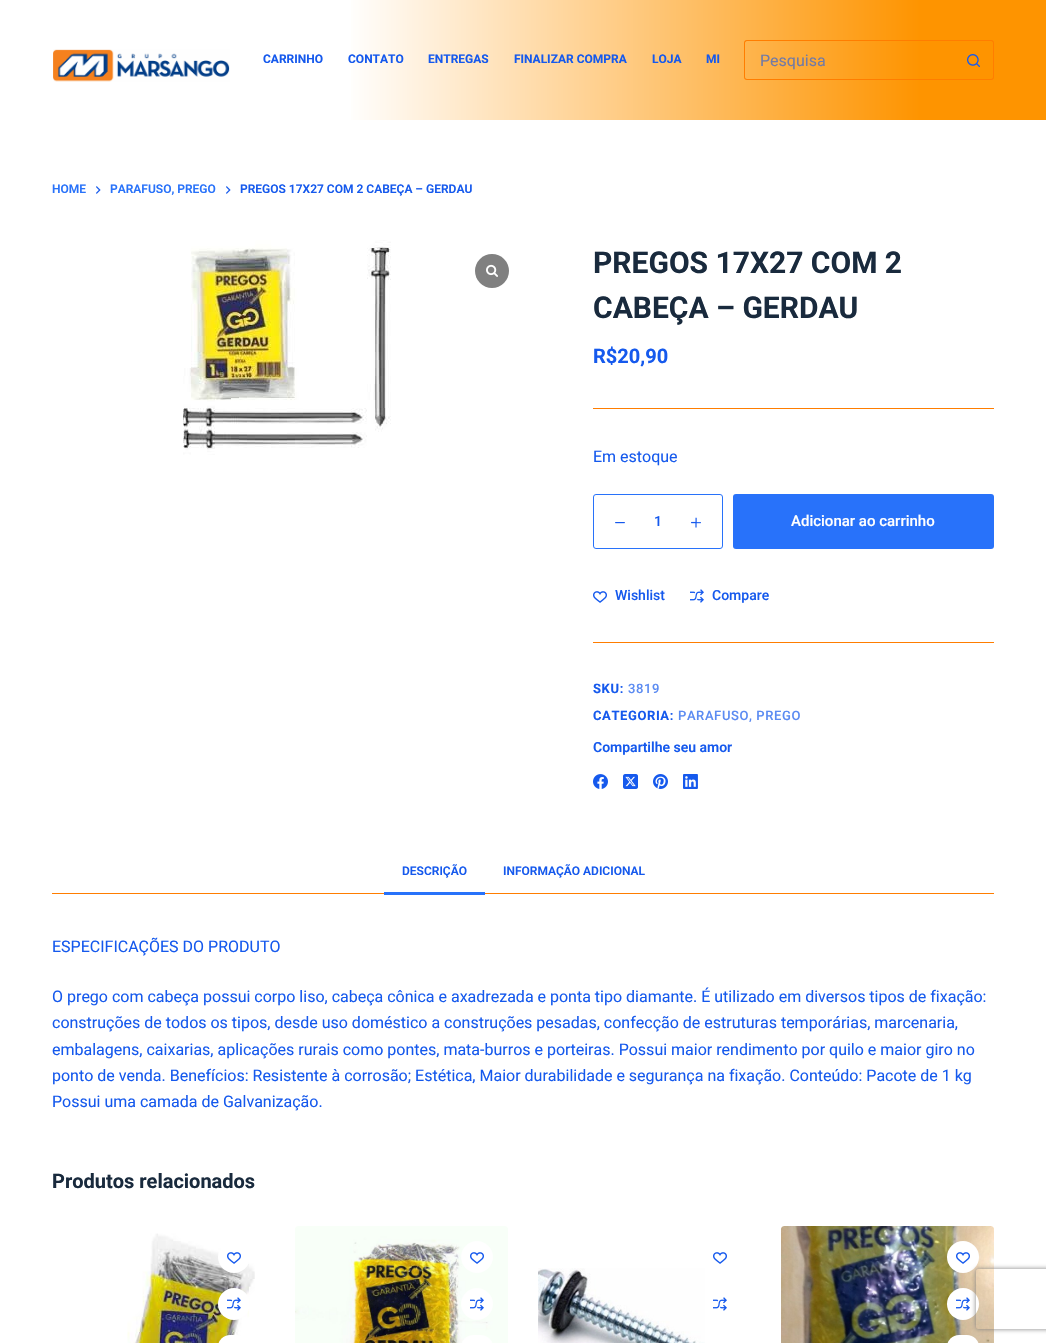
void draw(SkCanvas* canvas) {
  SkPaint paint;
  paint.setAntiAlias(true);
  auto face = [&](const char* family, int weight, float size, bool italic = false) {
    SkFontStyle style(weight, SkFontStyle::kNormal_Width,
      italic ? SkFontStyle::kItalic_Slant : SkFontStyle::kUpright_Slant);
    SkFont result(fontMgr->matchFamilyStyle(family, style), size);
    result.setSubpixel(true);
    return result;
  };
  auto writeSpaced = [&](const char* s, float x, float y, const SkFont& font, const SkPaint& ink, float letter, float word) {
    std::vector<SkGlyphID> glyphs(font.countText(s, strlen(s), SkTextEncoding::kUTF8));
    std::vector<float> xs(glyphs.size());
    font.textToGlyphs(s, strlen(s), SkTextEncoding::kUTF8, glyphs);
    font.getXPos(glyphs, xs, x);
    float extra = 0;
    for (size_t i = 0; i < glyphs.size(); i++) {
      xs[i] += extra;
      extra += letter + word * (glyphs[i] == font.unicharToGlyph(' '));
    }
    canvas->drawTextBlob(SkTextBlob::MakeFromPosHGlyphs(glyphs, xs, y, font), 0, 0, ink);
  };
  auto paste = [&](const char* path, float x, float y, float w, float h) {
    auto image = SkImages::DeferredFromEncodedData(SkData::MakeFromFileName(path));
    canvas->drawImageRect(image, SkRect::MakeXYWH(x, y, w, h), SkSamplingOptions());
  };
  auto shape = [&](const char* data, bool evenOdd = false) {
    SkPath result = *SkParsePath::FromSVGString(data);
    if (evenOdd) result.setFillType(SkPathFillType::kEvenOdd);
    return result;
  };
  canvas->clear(0xffffffff);
  {
    const SkColor colors[] = {0xffffffff, 0xfffe9400};
    const float stops[] = {0.33f, 0.88f};
    const SkPoint ends[] = {{0, 60}, {1046, 60}};
    paint.setShader(SkGradientShader::MakeLinear(ends, colors, stops, 2, SkTileMode::kClamp));
    paint.setAlpha(255);
  }
  canvas->drawRect(SkRect::MakeXYWH(351, 0, 695, 120), paint);
  paste("img/1.png", 53, 49, 177, 33);
  paint.setShader(nullptr);
  paint.setColor(0xffff7d00);
  canvas->drawPath(shape("M747 40H954V80H747C745 80 744 79 744 77V43C744 41 745 40 747 40ZM747 41H954V79H747C746 79 745 78 745 77V43C745 42 746 41 747 41Z", true), paint);
  canvas->drawPath(shape("M954 40H991C993 40 994 41 994 43V77C994 79 993 80 991 80H954ZM954 41H991C992 41 993 42 993 43V77C993 78 992 79 991 79H954Z", true), paint);
  paste("img/2.png", 967, 54, 13, 13);
  paint.setStroke(true);
  paint.setStrokeWidth(1.5f);
  paint.setStrokeCap(SkPaint::kRound_Cap);
  paint.setColor(0xfffe9400);
  canvas->drawPath(shape("M965.5 60C965.5 56 969 52.5 973 52.5"), paint);
  paste("img/3.png", 96, 186, 5, 8);
  paste("img/3.png", 226, 186, 5, 8);
  paste("img/4.png", 183, 240, 208, 215);
  paint.setStroke(false);
  paint.setColor(0xff808080);
  canvas->drawCircle(492, 271, 17, paint);
  paste("img/5.png", 486, 264, 12, 13);
  paint.setColor(0xffff7d00);
  canvas->drawRect(SkRect::MakeXYWH(593, 408, 401, 1), paint);
  paint.setStroke(true);
  paint.setStrokeWidth(1);
  paint.setStrokeCap(SkPaint::kButt_Cap);
  paint.setColor(0xff2872fa);
  canvas->drawRoundRect(SkRect::MakeXYWH(593.5f, 494.5f, 129, 54), 2.5f, 2.5f, paint);
  paste("img/6.png", 615, 522, 10, 2);
  paste("img/7.png", 691, 517, 10, 11);
  paint.setStroke(false);
  canvas->drawRoundRect(SkRect::MakeXYWH(733, 494, 261, 55), 3, 3, paint);
  paste("img/8.png", 593, 591, 14, 12);
  paste("img/9.png", 690, 589, 14, 14);
  paint.setColor(0xffff7d00);
  canvas->drawRect(SkRect::MakeXYWH(593, 642, 401, 1), paint);
  paste("img/10.png", 593, 774, 15, 15);
  paste("img/11.png", 623, 774, 15, 15);
  paste("img/12.png", 653, 774, 15, 15);
  paste("img/13.png", 683, 774, 15, 15);
  canvas->drawRect(SkRect::MakeXYWH(52, 893, 942, 1), paint);
  paint.setColor(0xff2872fa);
  canvas->drawRect(SkRect::MakeXYWH(384, 892, 101, 3), paint);
  paste("img/14.png", 127, 1233, 128, 110);
  paint.setColor(0xffffffff);
  canvas->drawCircle(234, 1257, 16, paint);
  paste("img/8.png", 227, 1252, 14, 12);
  canvas->drawCircle(234, 1304, 16, paint);
  paste("img/9.png", 227, 1297, 14, 14);
  canvas->drawRoundRect(SkRect::MakeXYWH(218, 1335, 32, 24), 16, 16, paint);
  paste("img/15.png", 295, 1226, 213, 117);
  canvas->drawCircle(477, 1257, 16, paint);
  paste("img/8.png", 470, 1252, 14, 12);
  canvas->drawCircle(477, 1304, 16, paint);
  paste("img/9.png", 470, 1297, 14, 14);
  canvas->drawRoundRect(SkRect::MakeXYWH(461, 1335, 32, 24), 16, 16, paint);
  paste("img/16.png", 538, 1268, 167, 75);
  paste("img/8.png", 713, 1252, 14, 12);
  paste("img/9.png", 713, 1297, 14, 14);
  paste("img/17.png", 781, 1226, 213, 117);
  canvas->drawCircle(963, 1257, 16, paint);
  paste("img/8.png", 956, 1252, 14, 12);
  canvas->drawCircle(963, 1304, 16, paint);
  paste("img/9.png", 956, 1297, 14, 14);
  canvas->drawRoundRect(SkRect::MakeXYWH(947, 1335, 32, 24), 16, 16, paint);
  canvas->save();
  canvas->clipPath(shape("M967 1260H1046V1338H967ZM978 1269H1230C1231 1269 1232 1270 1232 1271V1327C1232 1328 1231 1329 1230 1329H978C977 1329 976 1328 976 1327V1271C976 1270 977 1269 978 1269Z", true), true);
  paint.setColor(0xff808080);
  paint.setMaskFilter(SkMaskFilter::MakeBlur(kNormal_SkBlurStyle, 2.5f));
  canvas->drawRoundRect(SkRect::MakeXYWH(976, 1269, 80, 60), 2, 2, paint);
  paint.setMaskFilter(nullptr);
  canvas->restore();
  auto f0 = face("Roboto", 700, 12);
  paint.setColor(0xff1559ed);
  {
    const struct { const char* s; float x, y; } items[] = {
      {"CARRINHO", 263, 63},
      {"CONTATO", 348, 63},
      {"ENTREGAS", 428, 63},
      {"FINALIZAR COMPRA", 514, 63},
      {"LOJA", 652, 63},
      {"MI", 706, 63},
    };
    for (auto [s, x, y] : items) {
      canvas->drawString(s, x, y, f0, paint);
    }
  }
  auto f1 = face("Roboto", 400, 16);
  paint.setColor(0xff727aa5);
  canvas->drawString("Pesquisa", 760, 66, f1, paint);
  auto f2 = face("Roboto", 600, 12);
  paint.setColor(0xff2872fa);
  canvas->drawString("HOME", 52, 193, f2, paint);
  canvas->drawString("PARAFUSO, PREGO", 110, 193, f2, paint);
  paint.setColor(0xff1559ed);
  canvas->drawString("PREGOS 17X27 COM 2 CABEÇA – GERDAU", 240, 193, f2, paint);
  auto f3 = face("Roboto", 700, 30);
  paint.setColor(0xff192a3d);
  canvas->drawString("PREGOS 17X27 COM 2", 593, 273, f3, paint);
  canvas->drawString("CABEÇA – GERDAU", 593, 318, f3, paint);
  auto f4 = face("Roboto", 700, 20);
  paint.setColor(0xff1559ed);
  canvas->drawString("R$20,90", 593, 363, f4, paint);
  canvas->drawString("Em estoque", 593, 462, f1, paint);
  auto f5 = face("Roboto", 500, 14);
  canvas->drawString("1", 654, 526, f5, paint);
  auto f6 = face("Roboto", 500, 15);
  paint.setColor(0xffffffff);
  canvas->drawString("Adicionar ao carrinho", 791, 526, f6, paint);
  paint.setColor(0xff1559ed);
  canvas->drawString("Wishlist", 615, 600, f5, paint);
  canvas->drawString("Compare", 712, 600, f5, paint);
  auto f7 = face("Roboto", 700, 13);
  writeSpaced("SKU:", 593, 693, f7, paint, 0.6f, 0);
  auto f8 = face("Roboto", 500, 13);
  paint.setColor(0xff5b8bf2);
  writeSpaced("3819", 628, 693, f8, paint, 0.6f, 0);
  paint.setColor(0xff1559ed);
  writeSpaced("CATEGORIA:", 593, 720, f7, paint, 0.6f, 0);
  paint.setColor(0xff5b8bf2);
  writeSpaced("PARAFUSO, PREGO", 678, 720, f8, paint, 0.6f, 0);
  auto f9 = face("Roboto", 600, 14);
  paint.setColor(0xff1559ed);
  canvas->drawString("Compartilhe seu amor", 593, 752, f9, paint);
  canvas->drawString("DESCRIÇÃO", 402, 875, f2, paint);
  canvas->drawString("INFORMAÇÃO ADICIONAL", 503, 875, f2, paint);
  {
    const struct { const char* s; float x, y; } items[] = {
      {"ESPECIFICAÇÕES DO PRODUTO", 52, 952},
      {"O prego com cabeça possui corpo liso, cabeça cônica e axadrezada e ponta tipo diamante. É utilizado em diversos tipos de fixação:", 52, 1002},
      {"construções de todos os tipos, desde uso doméstico a construções pesadas, confecção de estruturas temporárias, marcenaria,", 52, 1028},
      {"embalagens, caixarias, aplicações rurais como pontes, mata-burros e porteiras. Possui maior rendimento por quilo e maior giro no", 52, 1055},
      {"ponto de venda. Benefícios: Resistente à corrosão; Estética, Maior durabilidade e segurança na fixação. Conteúdo: Pacote de 1 kg", 52, 1081},
      {"Possui uma camada de Galvanização.", 52, 1107},
    };
    for (auto [s, x, y] : items) {
      canvas->drawString(s, x, y, f1, paint);
    }
  }
  paint.setColor(0xff192a3d);
  canvas->drawString("Produtos relacionados", 52, 1188, f4, paint);
}
